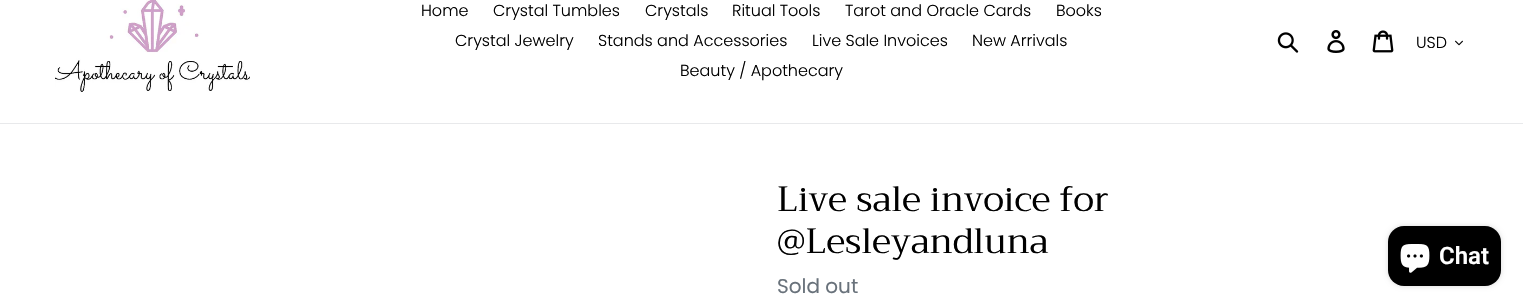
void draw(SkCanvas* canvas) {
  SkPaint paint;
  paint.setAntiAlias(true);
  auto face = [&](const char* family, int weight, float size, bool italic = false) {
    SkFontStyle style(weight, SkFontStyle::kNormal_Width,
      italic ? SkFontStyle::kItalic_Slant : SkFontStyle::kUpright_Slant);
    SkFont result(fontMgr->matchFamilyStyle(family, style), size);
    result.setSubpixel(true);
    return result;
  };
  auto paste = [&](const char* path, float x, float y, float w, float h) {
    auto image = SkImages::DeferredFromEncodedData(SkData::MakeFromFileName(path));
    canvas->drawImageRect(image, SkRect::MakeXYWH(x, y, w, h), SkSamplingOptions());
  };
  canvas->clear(0xffffffff);
  paint.setColor(0xffe8e9eb);
  canvas->drawRect(SkRect::MakeXYWH(0, 123, 1523, 1), paint);
  paste("img/1.png", 55, 0, 195, 92);
  paste("img/2.png", 1277, 32, 22, 21);
  paste("img/3.png", 1327, 30, 18, 23);
  paste("img/4.png", 1372, 30, 22, 23);
  paste("img/5.png", 1455, 40, 8, 6);
  paint.setColor(0x26000000);
  paint.setMaskFilter(SkMaskFilter::MakeBlur(kNormal_SkBlurStyle, 2.5f));
  canvas->drawRoundRect(SkRect::MakeXYWH(1388, 226, 113, 60), 16, 16, paint);
  paint.setMaskFilter(nullptr);
  paint.setColor(0xff000000);
  canvas->drawRoundRect(SkRect::MakeXYWH(1388, 226, 113, 60), 16, 16, paint);
  paste("img/6.png", 1400, 244, 30, 29);
  auto f0 = face("Poppins", 300, 16);
  {
    const struct { const char* s; float x, y; } items[] = {
      {"Home", 421, 16},
      {"Crystal Tumbles", 493, 16},
      {"Crystals", 645, 16},
      {"Ritual Tools", 732, 16},
      {"Tarot and Oracle Cards", 845, 16},
      {"Books", 1056, 16},
      {"Crystal Jewelry", 455, 46},
      {"Stands and Accessories", 598, 46},
      {"Live Sale Invoices", 812, 46},
      {"New Arrivals", 972, 46},
      {"Beauty / Apothecary", 680, 76},
      {"USD", 1416, 48},
    };
    for (auto [s, x, y] : items) {
      canvas->drawString(s, x, y, f0, paint);
    }
  }
  auto f1 = face("Trirong", 400, 35);
  canvas->drawString("Live sale invoice for", 777, 211, f1, paint);
  canvas->drawString("@Lesleyandluna", 777, 253, f1, paint);
  auto f2 = face("Poppins", 400, 20);
  paint.setColor(0xff69727b);
  canvas->drawString("Sold out", 777, 293, f2, paint);
  auto f3 = face("Roboto", 600, 24);
  paint.setColor(0xffffffff);
  canvas->drawString("Chat", 1439, 264, f3, paint);
}
